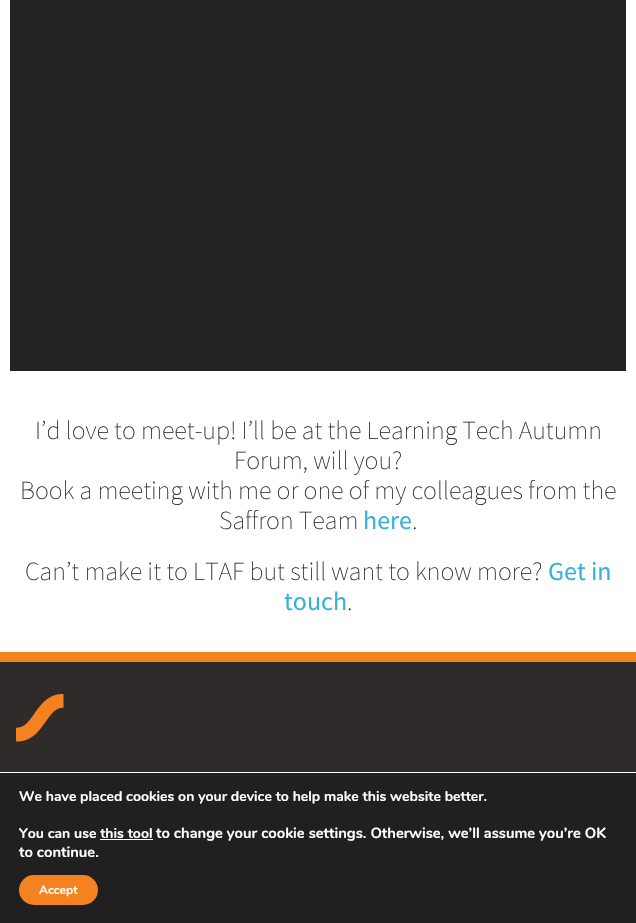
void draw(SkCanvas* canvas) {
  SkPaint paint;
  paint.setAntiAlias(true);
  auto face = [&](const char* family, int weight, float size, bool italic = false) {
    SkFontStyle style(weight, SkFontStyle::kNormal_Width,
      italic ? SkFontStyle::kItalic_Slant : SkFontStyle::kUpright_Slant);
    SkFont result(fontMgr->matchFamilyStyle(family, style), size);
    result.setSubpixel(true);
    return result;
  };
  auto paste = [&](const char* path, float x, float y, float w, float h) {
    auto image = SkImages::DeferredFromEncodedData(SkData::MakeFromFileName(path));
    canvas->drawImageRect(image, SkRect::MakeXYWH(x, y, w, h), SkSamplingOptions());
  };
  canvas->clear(0xffffffff);
  {
    const struct { float x, y, w, h; SkColor color; } items[] = {
      {10, 0, 616, 371, 0xff222222},
      {0, 662, 636, 110, 0xff302b2b},
      {0, 652, 636, 10, 0xfff58220},
    };
    for (auto [x, y, w, h, color] : items) {
      paint.setColor(color);
      canvas->drawRect(SkRect::MakeXYWH(x, y, w, h), paint);
    }
  }
  paste("img/1.png", 16, 694, 48, 48);
  paint.setColor(0xff202020);
  canvas->drawRect(SkRect::MakeXYWH(0, 773, 636, 150), paint);
  paint.setColor(0xffffffff);
  canvas->drawRect(SkRect::MakeXYWH(100, 839, 53, 1), paint);
  paint.setColor(0xfff58220);
  canvas->drawRoundRect(SkRect::MakeXYWH(19, 875, 79, 30), 15, 15, paint);
  auto f0 = face("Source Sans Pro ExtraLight", 200, 26);
  paint.setColor(0xff332e2e);
  {
    const struct { const char* s; float x, y; } items[] = {
      {"I’d love to meet-up! I’ll be at the Learning Tech Autumn", 35, 439},
      {"Forum, will you?", 234, 469},
      {"Book a meeting with me or one of my colleagues from the", 20, 499},
      {"Saffron Team", 219, 529},
    };
    for (auto [s, x, y] : items) {
      canvas->drawString(s, x, y, f0, paint);
    }
  }
  auto f1 = face("Source Sans Pro", 400, 26);
  paint.setColor(0xff36b1da);
  canvas->drawString("here", 363, 529, f1, paint);
  paint.setColor(0xff332e2e);
  canvas->drawString(".", 412, 529, f0, paint);
  canvas->drawString("Can’t make it to LTAF but still want to know more?", 25, 580, f0, paint);
  paint.setColor(0xff36b1da);
  canvas->drawString("Get in", 548, 580, f1, paint);
  canvas->drawString("touch", 284, 610, f1, paint);
  paint.setColor(0xff332e2e);
  canvas->drawString(".", 347, 610, f0, paint);
  auto f2 = face("Nunito", 700, 14);
  paint.setColor(0xffffffff);
  canvas->drawString("We have placed cookies on your device to help make this website better.", 19, 801, f2, paint);
  canvas->drawString("You can use this tool", 19, 838, f2, paint);
  auto f3 = face("Nunito", 700, 14.7f);
  canvas->drawString("to change your cookie settings. Otherwise, we’ll assume you’re OK", 156, 838, f3, paint);
  canvas->drawString("to continue.", 19, 857, f3, paint);
  auto f4 = face("Nunito", 700, 12);
  canvas->drawString("Accept", 39, 894, f4, paint);
}
